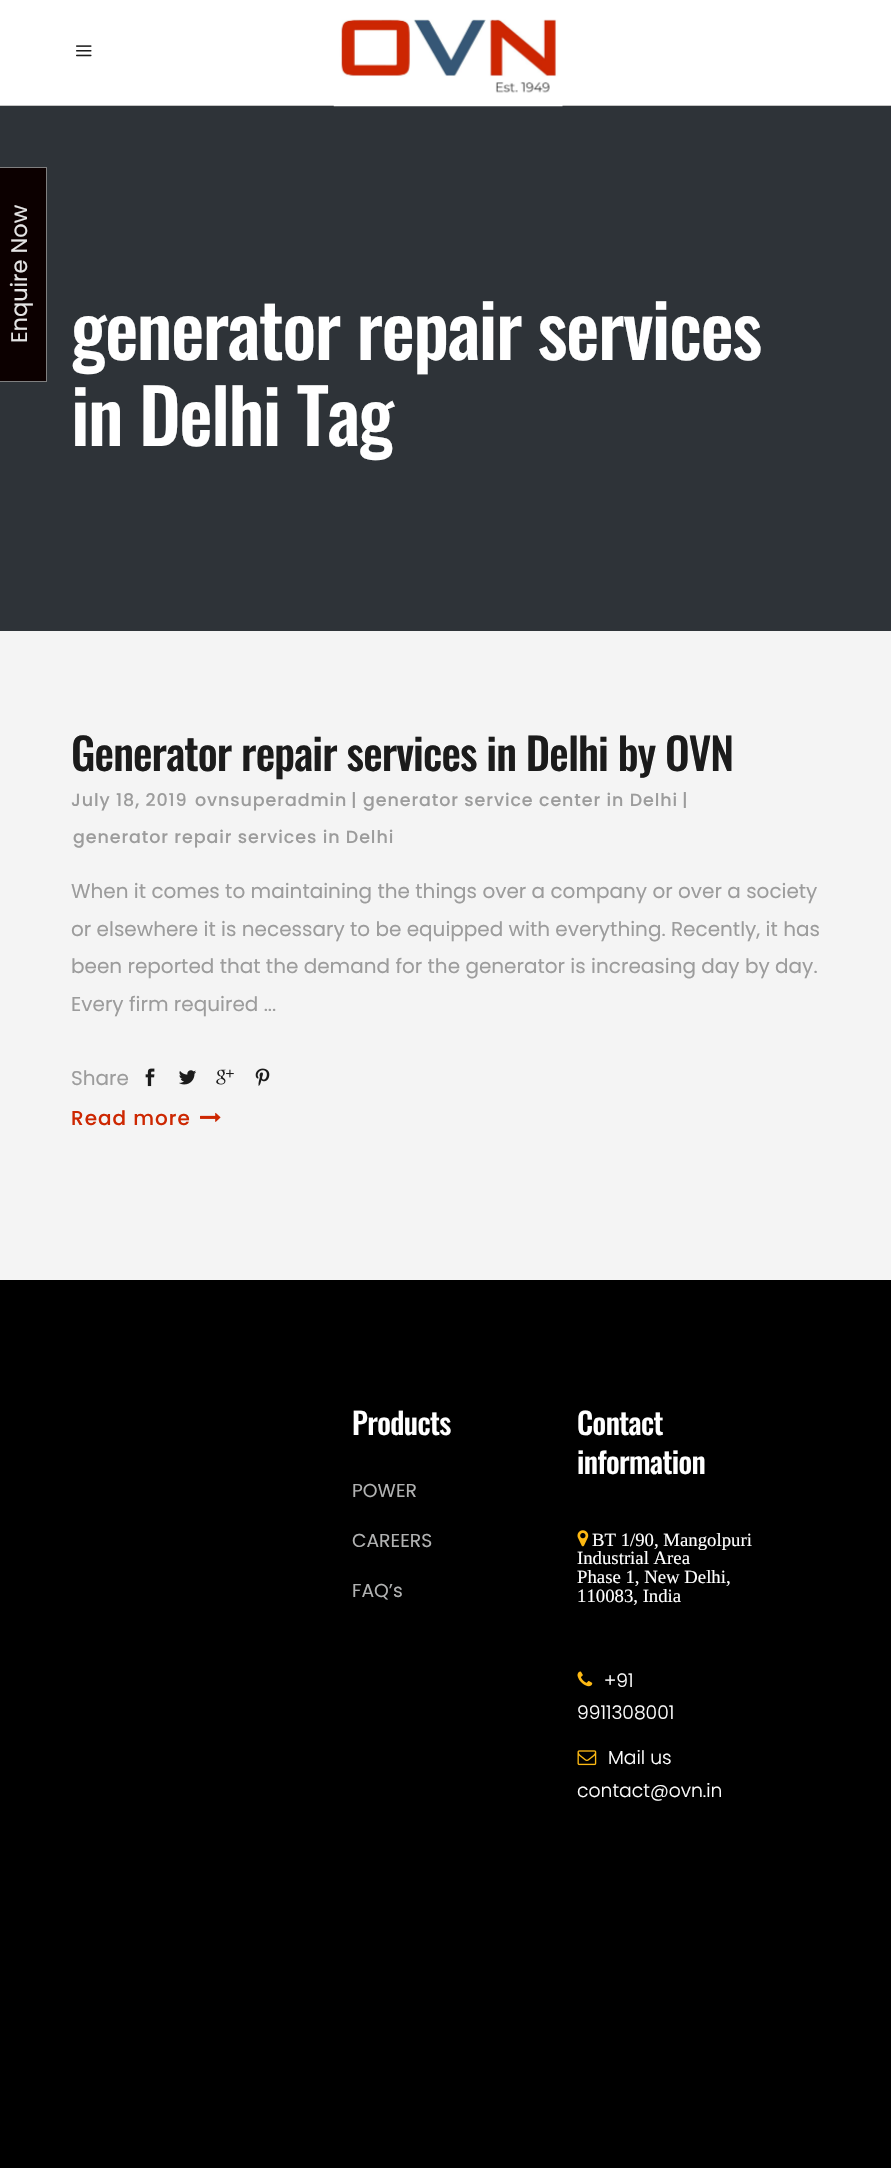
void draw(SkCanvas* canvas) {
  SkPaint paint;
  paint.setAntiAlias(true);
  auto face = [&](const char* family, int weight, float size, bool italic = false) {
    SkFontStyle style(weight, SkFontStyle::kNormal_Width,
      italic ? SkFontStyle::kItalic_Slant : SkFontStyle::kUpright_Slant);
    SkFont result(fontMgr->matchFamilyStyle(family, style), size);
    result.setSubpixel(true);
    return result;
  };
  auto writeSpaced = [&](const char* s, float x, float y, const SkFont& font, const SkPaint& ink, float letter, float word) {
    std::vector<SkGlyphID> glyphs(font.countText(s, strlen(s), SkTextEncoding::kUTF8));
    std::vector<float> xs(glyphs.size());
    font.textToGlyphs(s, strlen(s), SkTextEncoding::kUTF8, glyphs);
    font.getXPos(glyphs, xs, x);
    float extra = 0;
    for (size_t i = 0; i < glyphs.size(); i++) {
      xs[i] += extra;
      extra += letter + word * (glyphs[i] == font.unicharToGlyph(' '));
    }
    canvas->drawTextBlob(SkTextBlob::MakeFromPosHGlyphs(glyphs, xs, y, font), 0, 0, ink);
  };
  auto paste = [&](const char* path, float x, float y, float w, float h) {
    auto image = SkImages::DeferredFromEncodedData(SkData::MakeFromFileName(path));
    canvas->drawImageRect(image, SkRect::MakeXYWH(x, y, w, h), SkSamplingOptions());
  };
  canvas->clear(0xffffffff);
  {
    const struct { float x, y, w, h; SkColor color; } items[] = {
      {0, 106, 891, 525, 0xff2e3338},
      {0, 168, 46, 213, 0xff0c0000},
      {0, 167, 47, 1, 0xff7f7f7f},
      {46, 167, 1, 215, 0xff7f7f7f},
      {0, 381, 47, 1, 0xff7f7f7f},
      {0, 105, 891, 1, 0xffc5c5c5},
    };
    for (auto [x, y, w, h, color] : items) {
      paint.setColor(color);
      canvas->drawRect(SkRect::MakeXYWH(x, y, w, h), paint);
    }
  }
  paste("img/1.png", 76, 45, 16, 12);
  paste("img/2.png", 333, 19, 230, 88);
  paint.setColor(0xfff4f4f4);
  canvas->drawRect(SkRect::MakeXYWH(0, 631, 891, 649), paint);
  paste("img/3.png", 145, 1068, 10, 19);
  paste("img/4.png", 179, 1070, 17, 15);
  paste("img/5.png", 216, 1069, 18, 16);
  paste("img/6.png", 255, 1068, 15, 18);
  paste("img/7.png", 200, 1112, 21, 10);
  paint.setColor(0xff000000);
  canvas->drawRect(SkRect::MakeXYWH(0, 1280, 891, 888), paint);
  paste("img/8.png", 577, 1530, 12, 17);
  paste("img/9.png", 577, 1671, 16, 16);
  paste("img/10.png", 577, 1750, 20, 16);
  auto f0 = face("Poppins", 400, 22.5f);
  paint.setColor(0xffe5e5e5);
  canvas->save();
  canvas->rotate(-90, 27, 343);
  canvas->drawString("Enquire Now", 27, 343, f0, paint);
  canvas->restore();
  auto f1 = face("Oswald", 500, 75);
  paint.setColor(0xffffffff);
  writeSpaced("generator repair services", 71, 360, f1, paint, -1.5f, 0);
  writeSpaced("in Delhi Tag", 71, 446, f1, paint, -1.5f, 0);
  auto f2 = face("Oswald", 500, 43.75f);
  paint.setColor(0xff1b1b1b);
  writeSpaced("Generator repair services in Delhi by OVN", 71, 771, f2, paint, -0.9f, 0);
  auto f3 = face("Poppins", 500, 17.5f);
  paint.setColor(0xff9c9c9c);
  {
    const struct { const char* s; float x, y; } items[] = {
      {"July 18, 2019", 71, 806},
      {"ovnsuperadmin", 195, 806},
      {"| generator service center in Delhi", 351, 806},
      {"|", 682, 806},
      {"generator repair services in Delhi", 73, 843},
    };
    for (auto [s, x, y] : items) {
      writeSpaced(s, x, y, f3, paint, 0.9f, 0);
    }
  }
  auto f4 = face("Poppins", 400, 20);
  {
    const struct { const char* s; float x, y; } items[] = {
      {"When it comes to maintaining the things over a company or over a society", 71, 898},
      {"or elsewhere it is necessary to be equipped with everything. Recently, it has", 71, 936},
      {"been reported that the demand for the generator is increasing day by day.", 71, 973},
      {"Every firm required ...", 71, 1011},
      {"Share", 71, 1085},
    };
    for (auto [s, x, y] : items) {
      canvas->drawString(s, x, y, f4, paint);
    }
  }
  auto f5 = face("Poppins", 500, 20);
  paint.setColor(0xffcd2701);
  writeSpaced("Read more", 71, 1125, f5, paint, 1, 0);
  auto f6 = face("Oswald", 500, 30);
  paint.setColor(0xffffffff);
  writeSpaced("Products", 352, 1435, f6, paint, -0.6f, 0);
  auto f7 = face("Poppins", 400, 18.75f);
  paint.setColor(0xffb1b2b2);
  {
    const struct { const char* s; float x, y; } items[] = {
      {"POWER", 352, 1497},
      {"CAREERS", 352, 1547},
      {"FAQ’s", 352, 1597},
    };
    for (auto [s, x, y] : items) {
      canvas->drawString(s, x, y, f7, paint);
    }
  }
  paint.setColor(0xffffffff);
  writeSpaced("Contact", 577, 1435, f6, paint, -0.6f, 0);
  writeSpaced("information", 577, 1474, f6, paint, -0.6f, 0);
  auto f8 = face("Liberation Serif", 400, 18.75f);
  {
    const struct { const char* s; float x, y; } items[] = {
      {"BT 1/90, Mangolpuri", 592, 1546},
      {"Industrial Area", 577, 1564},
      {"Phase 1, New Delhi,", 577, 1583},
      {"110083, India", 577, 1602},
    };
    for (auto [s, x, y] : items) {
      canvas->drawString(s, x, y, f8, paint);
    }
  }
  auto f9 = face("Poppins", 300, 18.75f);
  {
    const struct { const char* s; float x, y; } items[] = {
      {"+91", 604, 1687},
      {"9911308001", 577, 1719},
      {"Mail us", 608, 1764},
      {"contact@ovn.in", 577, 1797},
    };
    for (auto [s, x, y] : items) {
      canvas->drawString(s, x, y, f9, paint);
    }
  }
}
